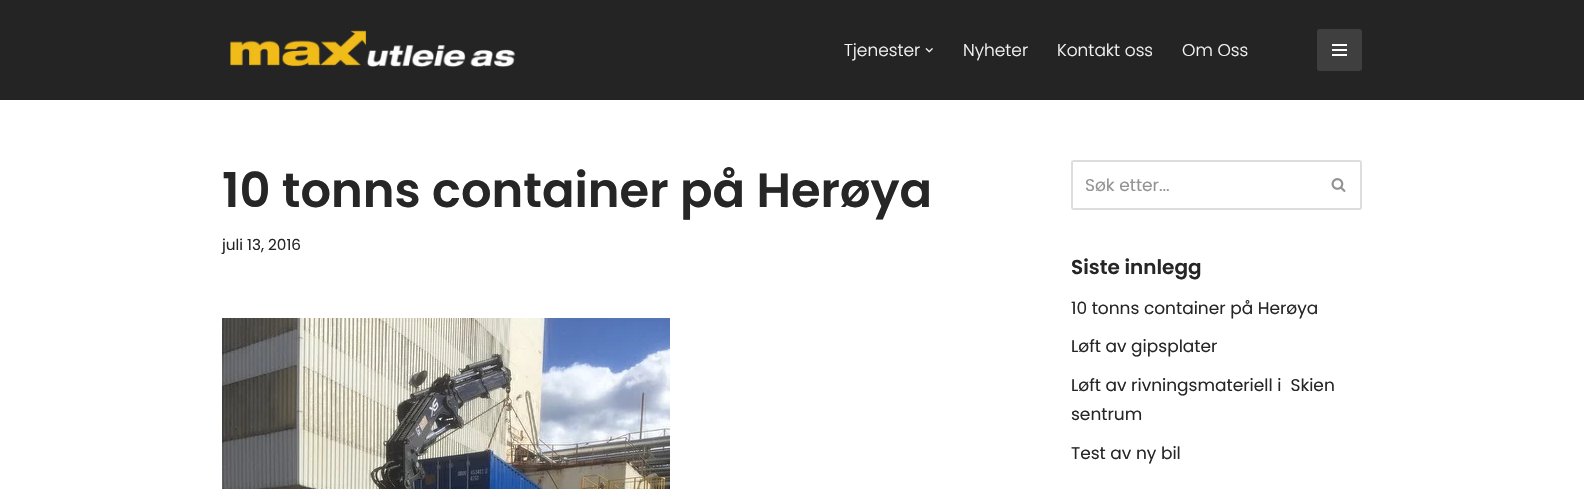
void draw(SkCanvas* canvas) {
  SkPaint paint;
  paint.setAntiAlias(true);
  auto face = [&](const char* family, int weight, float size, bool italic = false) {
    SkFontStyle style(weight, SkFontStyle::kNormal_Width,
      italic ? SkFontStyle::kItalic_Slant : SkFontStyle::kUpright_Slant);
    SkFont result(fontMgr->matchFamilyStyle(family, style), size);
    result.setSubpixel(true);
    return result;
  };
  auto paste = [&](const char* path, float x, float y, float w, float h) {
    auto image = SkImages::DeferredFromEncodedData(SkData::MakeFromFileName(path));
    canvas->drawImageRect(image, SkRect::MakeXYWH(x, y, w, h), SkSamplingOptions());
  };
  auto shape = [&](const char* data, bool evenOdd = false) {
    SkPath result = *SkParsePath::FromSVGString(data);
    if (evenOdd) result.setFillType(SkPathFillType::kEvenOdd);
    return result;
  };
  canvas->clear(0xffffffff);
  paint.setColor(0xff242424);
  canvas->drawRect(SkRect::MakeXYWH(0, 0, 1584, 100), paint);
  paste("img/1.png", 230, 30, 286, 37);
  paste("img/2.png", 925, 48, 8, 5);
  paint.setColor(0xff403f3f);
  canvas->drawRoundRect(SkRect::MakeXYWH(1317, 29, 45, 42), 3, 3, paint);
  {
    const struct { float x, y, w, h; SkColor color; } items[] = {
      {1332, 44, 15, 2, 0xffffffff},
      {1332, 49, 15, 2, 0xffffffff},
      {1332, 54, 15, 2, 0xffffffff},
    };
    for (auto [x, y, w, h, color] : items) {
      paint.setColor(color);
      canvas->drawRect(SkRect::MakeXYWH(x, y, w, h), paint);
    }
  }
  paste("img/3.png", 222, 318, 448, 171);
  paint.setColor(0xffdddddd);
  canvas->drawPath(shape("M1074 160H1317V210H1074C1072 210 1071 209 1071 207V163C1071 161 1072 160 1074 160ZM1074 162H1317V208H1074C1073 208 1073 208 1073 207V163C1073 162 1073 162 1074 162Z", true), paint);
  canvas->drawPath(shape("M1317 160H1359C1361 160 1362 161 1362 163V207C1362 209 1361 210 1359 210H1317ZM1317 162H1359C1360 162 1360 162 1360 163V207C1360 208 1360 208 1359 208H1317Z", true), paint);
  paste("img/4.png", 1331, 178, 15, 14);
  auto f0 = face("Poppins", 300, 17);
  paint.setColor(0xfff5f5f5);
  {
    const struct { const char* s; float x, y; } items[] = {
      {"Tjenester", 844, 56},
      {"Nyheter", 963, 56},
      {"Kontakt oss", 1057, 56},
      {"Om Oss", 1182, 56},
    };
    for (auto [s, x, y] : items) {
      canvas->drawString(s, x, y, f0, paint);
    }
  }
  auto f1 = face("Poppins", 600, 48);
  paint.setColor(0xff272626);
  canvas->drawString("10 tonns container på Herøya", 222, 207, f1, paint);
  auto f2 = face("Poppins", 400, 15.25f);
  canvas->drawString("juli 13, 2016", 222, 250, f2, paint);
  auto f3 = face("Poppins", 400, 17);
  paint.setColor(0xff939393);
  canvas->drawString("Søk etter...", 1085, 191, f3, paint);
  auto f4 = face("Poppins", 600, 20);
  paint.setColor(0xff272626);
  canvas->drawString("Siste innlegg", 1071, 274, f4, paint);
  {
    const struct { const char* s; float x, y; } items[] = {
      {"10 tonns container på Herøya", 1071, 314},
      {"Løft av gipsplater", 1071, 352},
      {"Løft av rivningsmateriell i  Skien", 1071, 391},
      {"sentrum", 1071, 420},
      {"Test av ny bil", 1071, 459},
    };
    for (auto [s, x, y] : items) {
      canvas->drawString(s, x, y, f3, paint);
    }
  }
}
